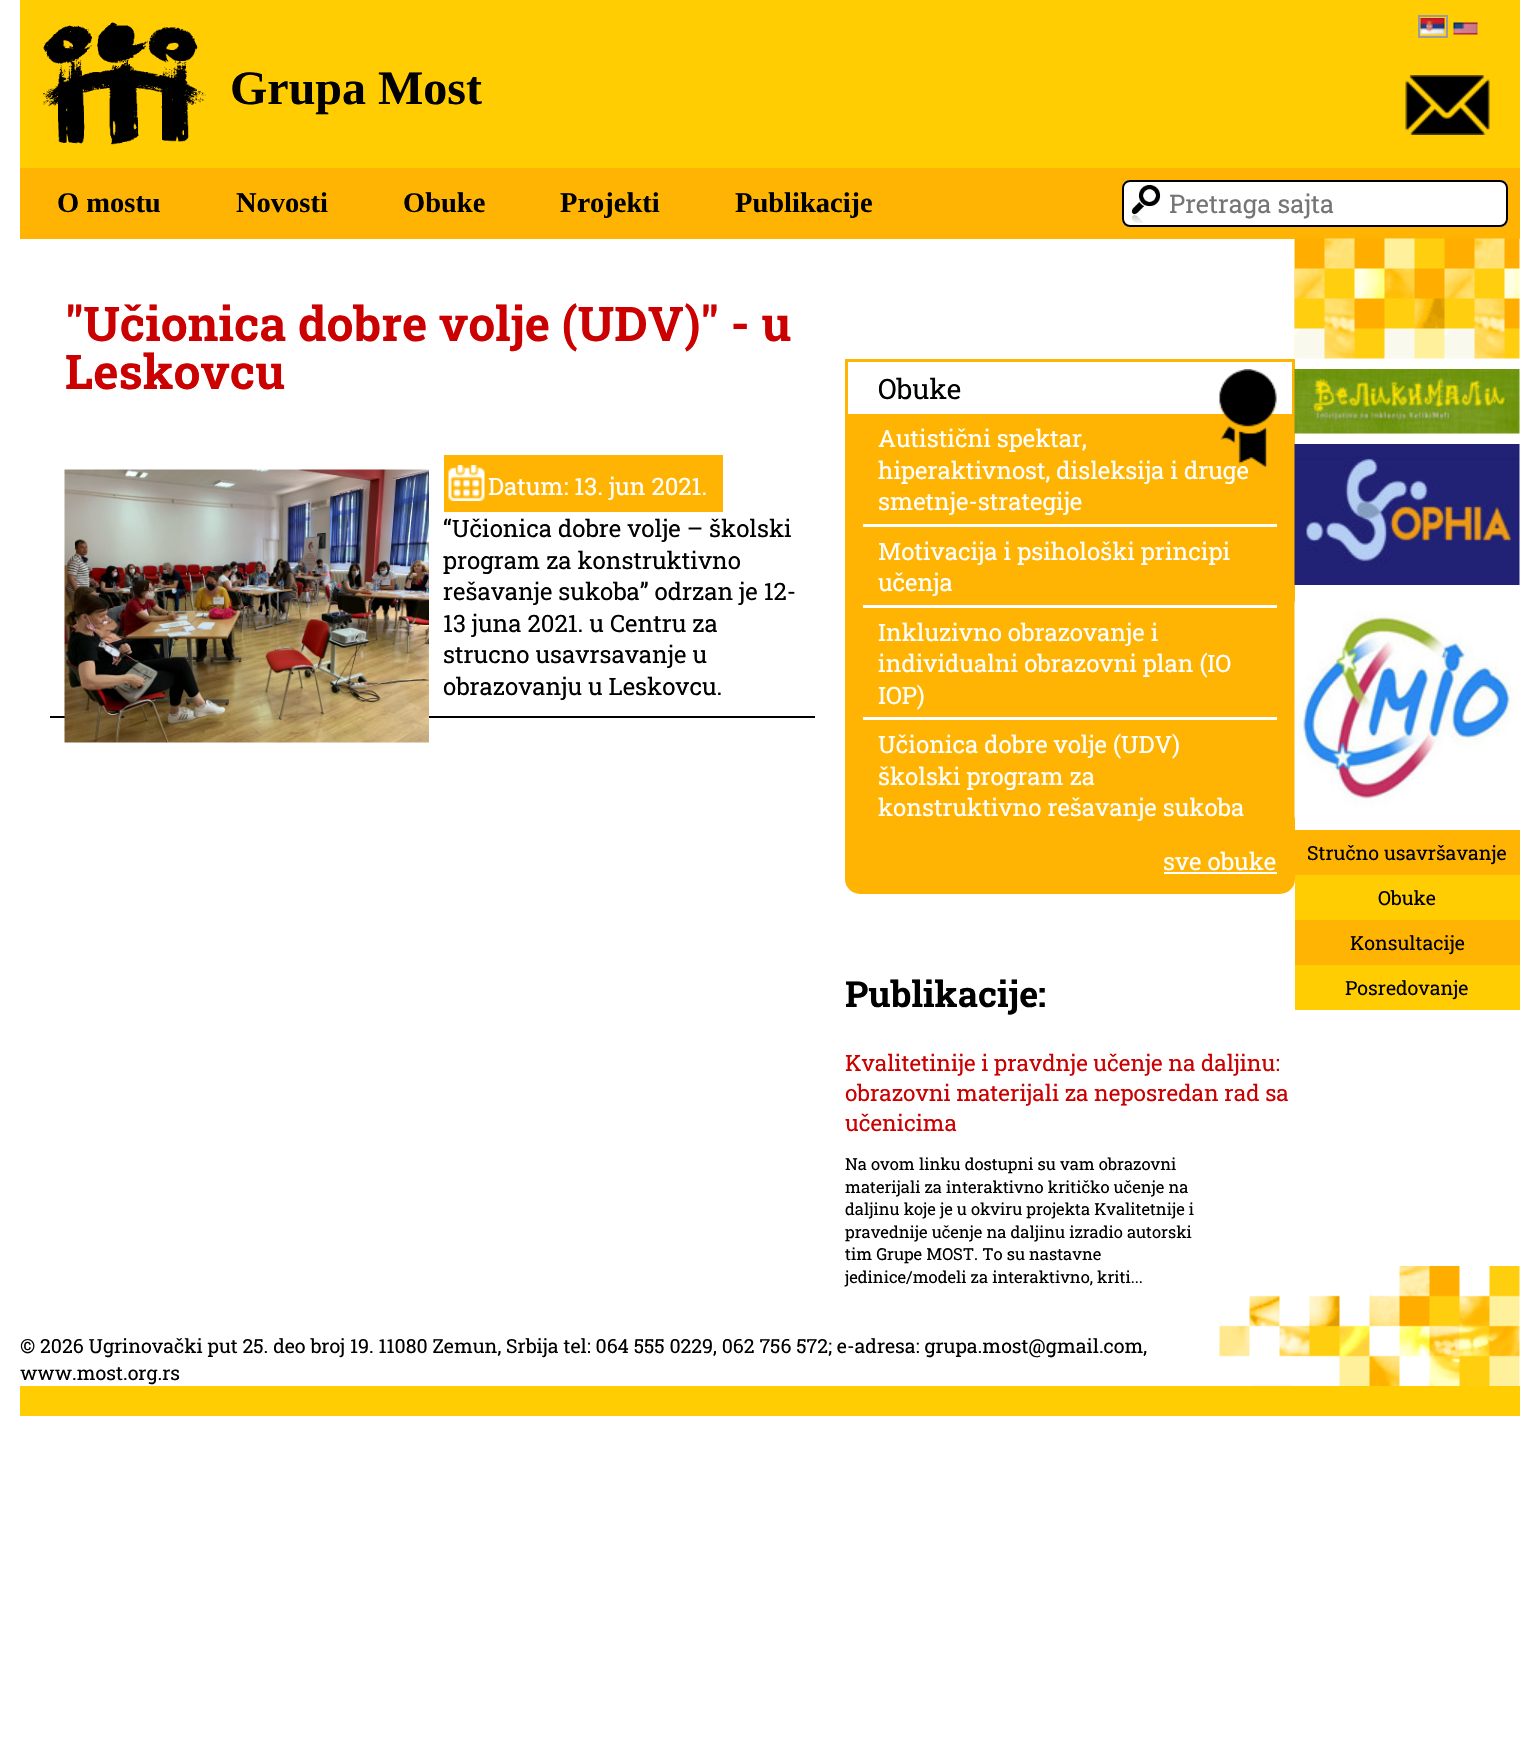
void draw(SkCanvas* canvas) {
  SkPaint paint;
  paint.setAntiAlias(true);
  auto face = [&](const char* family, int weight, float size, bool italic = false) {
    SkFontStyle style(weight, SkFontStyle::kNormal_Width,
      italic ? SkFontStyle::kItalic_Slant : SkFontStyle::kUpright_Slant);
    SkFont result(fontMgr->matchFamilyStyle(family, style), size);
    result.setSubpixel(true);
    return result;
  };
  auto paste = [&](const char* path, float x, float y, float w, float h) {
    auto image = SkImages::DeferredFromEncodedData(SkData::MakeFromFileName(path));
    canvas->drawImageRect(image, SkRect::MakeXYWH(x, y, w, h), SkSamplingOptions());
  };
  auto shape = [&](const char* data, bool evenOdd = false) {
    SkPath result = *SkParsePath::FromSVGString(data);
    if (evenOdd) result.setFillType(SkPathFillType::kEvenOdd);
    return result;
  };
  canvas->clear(0xffffffff);
  paint.setColor(0xffffcd02);
  canvas->drawRect(SkRect::MakeXYWH(20, 0, 1500, 168), paint);
  paint.setStroke(true);
  paint.setStrokeWidth(2);
  paint.setColor(0xff9c9c9c);
  canvas->drawRect(SkRect::MakeXYWH(1419, 16, 28, 21), paint);
  paste("img/1.png", 1420, 18, 25, 17);
  paste("img/2.png", 1453, 22, 25, 13);
  paste("img/3.png", 43, 22, 163, 123);
  paste("img/4.png", 1405, 75, 85, 60);
  paint.setStroke(false);
  paint.setColor(0xffffb403);
  canvas->drawRect(SkRect::MakeXYWH(20, 168, 1500, 71), paint);
  paint.setColor(0xffffffff);
  canvas->drawRoundRect(SkRect::MakeXYWH(1122, 180, 386, 47), 8, 8, paint);
  paste("img/5.png", 1131, 184, 30, 39);
  paint.setStroke(true);
  paint.setColor(0xff000000);
  canvas->drawRoundRect(SkRect::MakeXYWH(1123, 181, 384, 45), 7, 7, paint);
  paint.setStroke(false);
  canvas->drawRect(SkRect::MakeXYWH(50, 716, 765, 2), paint);
  paste("img/6.png", 64, 469, 365, 274);
  paint.setColor(0xffffb403);
  canvas->drawRect(SkRect::MakeXYWH(444, 455, 279, 57), paint);
  paste("img/7.png", 448, 465, 37, 36);
  canvas->drawPath(shape("M846.5 360.5H1293.5V879C1293.5 886.5 1287.5 892.5 1280 892.5H860C852.5 892.5 846.5 886.5 846.5 879Z"), paint);
  paint.setStroke(true);
  paint.setStrokeWidth(3);
  canvas->drawPath(shape("M846.5 360.5H1293.5V879C1293.5 886.5 1287.5 892.5 1280 892.5H860C852.5 892.5 846.5 886.5 846.5 879Z"), paint);
  paint.setStroke(false);
  {
    const struct { float x, y, w, h; SkColor color; } items[] = {
      {848, 362, 444, 52, 0xffffffff},
      {863, 524, 414, 3, 0xffffffff},
      {863, 605, 414, 3, 0xffffffff},
      {863, 717, 414, 3, 0xffffffff},
      {1164, 872, 113, 2, 0xffffffff},
    };
    for (auto [x, y, w, h, color] : items) {
      paint.setColor(color);
      canvas->drawRect(SkRect::MakeXYWH(x, y, w, h), paint);
    }
  }
  paste("img/9.png", 1294, 238, 226, 121);
  paste("img/10.png", 1294, 369, 226, 65);
  paste("img/11.png", 1294, 444, 226, 141);
  paste("img/12.png", 1294, 601, 224, 217);
  {
    const struct { float x, y, w, h; SkColor color; } items[] = {
      {1295, 830, 225, 45, 0xffffb302},
      {1295, 875, 225, 45, 0xffffcd02},
      {1295, 920, 225, 45, 0xffffb302},
      {1295, 965, 225, 45, 0xffffcd02},
      {20, 1386, 1500, 30, 0xffffcd02},
    };
    for (auto [x, y, w, h, color] : items) {
      paint.setColor(color);
      canvas->drawRect(SkRect::MakeXYWH(x, y, w, h), paint);
    }
  }
  paste("img/13.png", 1219, 1266, 301, 120);
  auto f0 = face("Liberation Serif", 700, 48);
  paint.setColor(0xff000000);
  canvas->drawString("Grupa Most", 230, 104, f0, paint);
  auto f1 = face("Liberation Serif", 700, 28.5f);
  {
    const struct { const char* s; float x, y; } items[] = {
      {"O mostu", 57, 212},
      {"Novosti", 236, 212},
      {"Obuke", 403, 212},
      {"Projekti", 560, 212},
      {"Publikacije", 735, 212},
    };
    for (auto [s, x, y] : items) {
      canvas->drawString(s, x, y, f1, paint);
    }
  }
  auto f2 = face("Roboto Slab", 400, 25.5f);
  paint.setColor(0xff757575);
  canvas->drawString("Pretraga sajta", 1169, 213, f2, paint);
  auto f3 = face("Roboto Slab", 700, 48);
  paint.setColor(0xffcb0000);
  canvas->drawString("\"Učionica dobre volje (UDV)\" - u", 65, 341, f3, paint);
  canvas->drawString("Leskovcu", 65, 389, f3, paint);
  auto f4 = face("Roboto Slab", 400, 24);
  paint.setColor(0xffffffff);
  canvas->drawString("Datum: 13. jun 2021.", 488, 495, f4, paint);
  paint.setColor(0xff000000);
  {
    const struct { const char* s; float x, y; } items[] = {
      {"“Učionica dobre volje – školski", 443, 537},
      {"program za konstruktivno", 443, 569},
      {"rešavanje sukoba” odrzan je 12-", 443, 600},
      {"13 juna 2021. u Centru za", 443, 632},
      {"strucno usavrsavanje u", 443, 663},
      {"obrazovanju u Leskovcu.", 443, 695},
    };
    for (auto [s, x, y] : items) {
      canvas->drawString(s, x, y, f4, paint);
    }
  }
  auto f5 = face("Roboto Slab", 400, 28);
  canvas->drawString("Obuke", 878, 399, f5, paint);
  paint.setColor(0xffffffff);
  canvas->drawString("Autistični spektar,", 878, 447, f4, paint);
  canvas->drawString("hiperaktivnost, disleksija i druge", 878, 479, f4, paint);
  paste("img/8.png", 1219, 369, 58, 98);
  {
    const struct { const char* s; float x, y; } items[] = {
      {"smetnje-strategije", 878, 510},
      {"Motivacija i psihološki principi", 878, 560},
      {"učenja", 878, 591},
      {"Inkluzivno obrazovanje i", 878, 641},
      {"individualni obrazovni plan (IO", 878, 672},
      {"IOP)", 878, 704},
      {"Učionica dobre volje (UDV)", 878, 753},
      {"školski program za", 878, 785},
      {"konstruktivno rešavanje sukoba", 878, 816},
      {"sve obuke", 1163, 870},
    };
    for (auto [s, x, y] : items) {
      canvas->drawString(s, x, y, f4, paint);
    }
  }
  auto f6 = face("Roboto Slab", 700, 36);
  paint.setColor(0xff000000);
  canvas->drawString("Publikacije:", 845, 1007, f6, paint);
  auto f7 = face("Roboto Slab", 400, 22.5f);
  paint.setColor(0xffcb0000);
  {
    const struct { const char* s; float x, y; } items[] = {
      {"Kvalitetinije i pravdnje učenje na daljinu:", 845, 1071},
      {"obrazovni materijali za neposredan rad sa", 845, 1101},
      {"učenicima", 845, 1131},
    };
    for (auto [s, x, y] : items) {
      canvas->drawString(s, x, y, f7, paint);
    }
  }
  auto f8 = face("Roboto Slab", 400, 16.5f);
  paint.setColor(0xff000000);
  {
    const struct { const char* s; float x, y; } items[] = {
      {"Na ovom linku dostupni su vam obrazovni", 845, 1170},
      {"materijali za interaktivno kritičko učenje na", 845, 1193},
      {"daljinu koje je u okviru projekta Kvalitetnije i", 845, 1215},
      {"pravednije učenje na daljinu izradio autorski", 845, 1238},
      {"tim Grupe MOST. To su nastavne", 845, 1260},
      {"jedinice/modeli za interaktivno, kriti...", 845, 1283},
    };
    for (auto [s, x, y] : items) {
      canvas->drawString(s, x, y, f8, paint);
    }
  }
  auto f9 = face("Roboto Slab", 400, 19.5f);
  {
    const struct { const char* s; float x, y; } items[] = {
      {"Stručno usavršavanje", 1307, 860},
      {"Obuke", 1378, 905},
      {"Konsultacije", 1350, 950},
      {"Posredovanje", 1345, 995},
      {"© 2026 Ugrinovački put 25. deo broj 19. 11080 Zemun, Srbija tel: 064 555 0229, 062 756 572; e-adresa: grupa.most@gmail.com,", 20, 1353},
      {"www.most.org.rs", 20, 1380},
    };
    for (auto [s, x, y] : items) {
      canvas->drawString(s, x, y, f9, paint);
    }
  }
}
